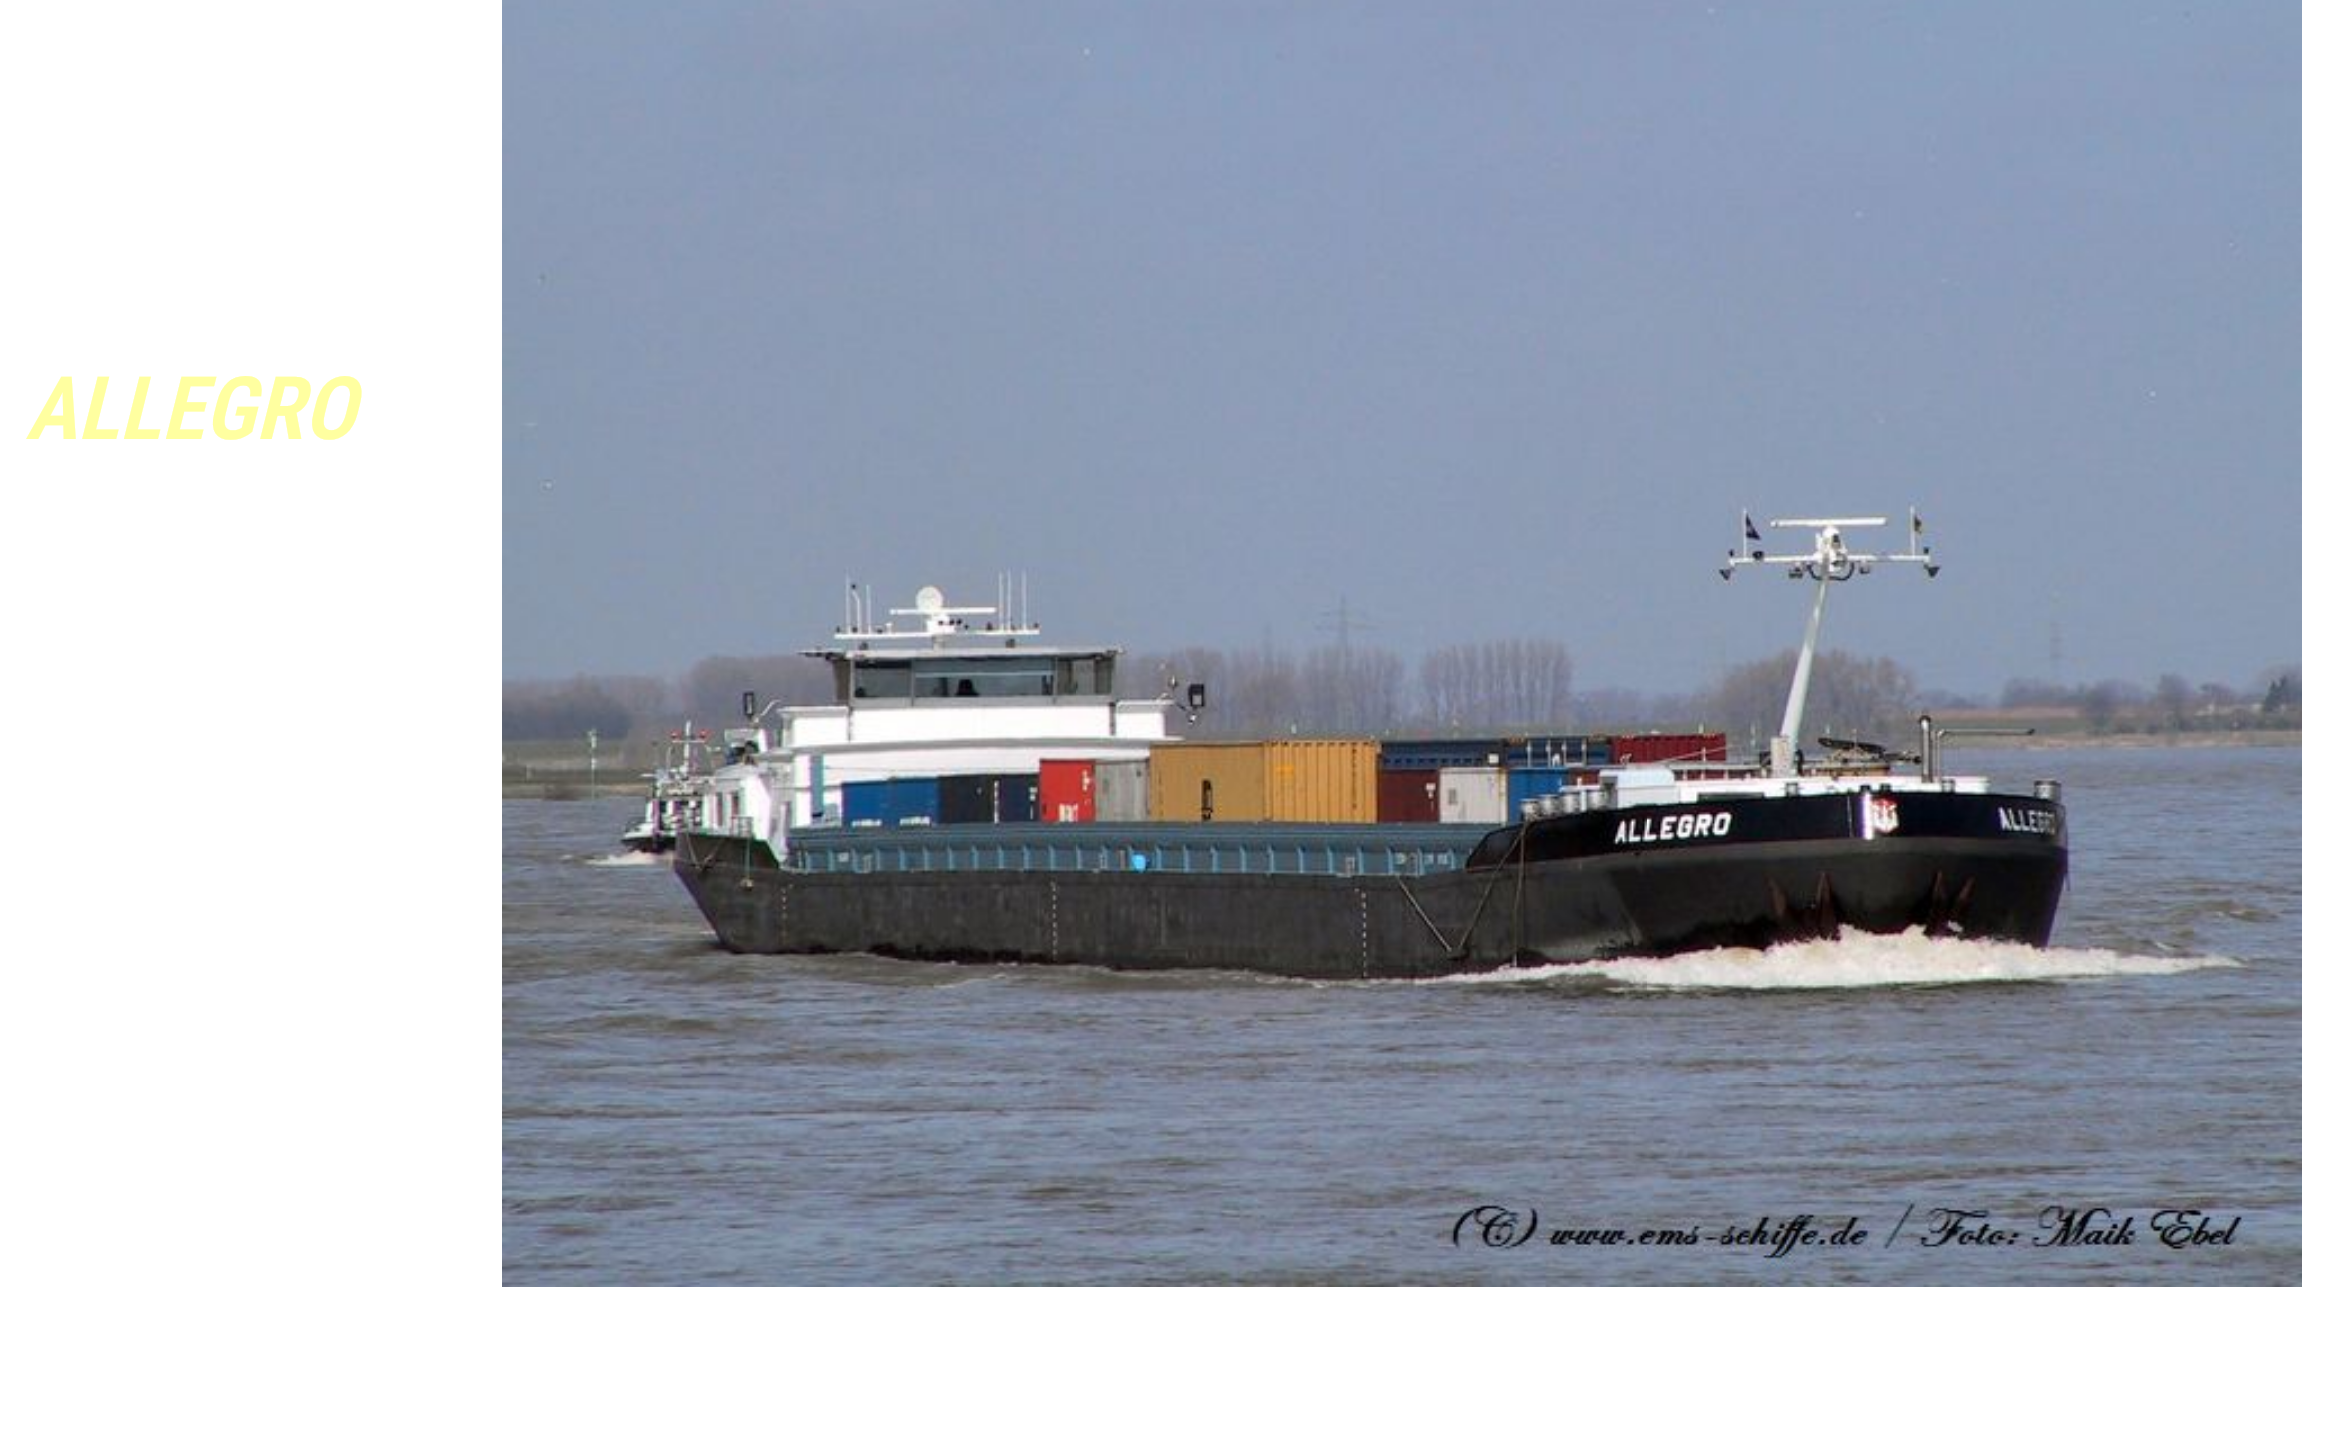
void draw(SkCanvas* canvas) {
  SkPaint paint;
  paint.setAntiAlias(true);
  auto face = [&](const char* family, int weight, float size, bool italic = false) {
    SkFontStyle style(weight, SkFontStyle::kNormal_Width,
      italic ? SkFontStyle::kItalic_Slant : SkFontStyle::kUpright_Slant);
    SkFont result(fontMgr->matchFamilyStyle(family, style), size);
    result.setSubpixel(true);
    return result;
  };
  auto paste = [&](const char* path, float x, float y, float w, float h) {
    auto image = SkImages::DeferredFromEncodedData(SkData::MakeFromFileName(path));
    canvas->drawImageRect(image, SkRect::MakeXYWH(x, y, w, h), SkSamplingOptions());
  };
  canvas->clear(0xffffffff);
  paste("img/1.png", 502, 0, 1800, 1287);
  auto f0 = face("Roboto Condensed", 600, 87.5f, true);
  paint.setColor(0xffffffa0);
  canvas->drawString("ALLEGRO", 25, 439, f0, paint);
}
